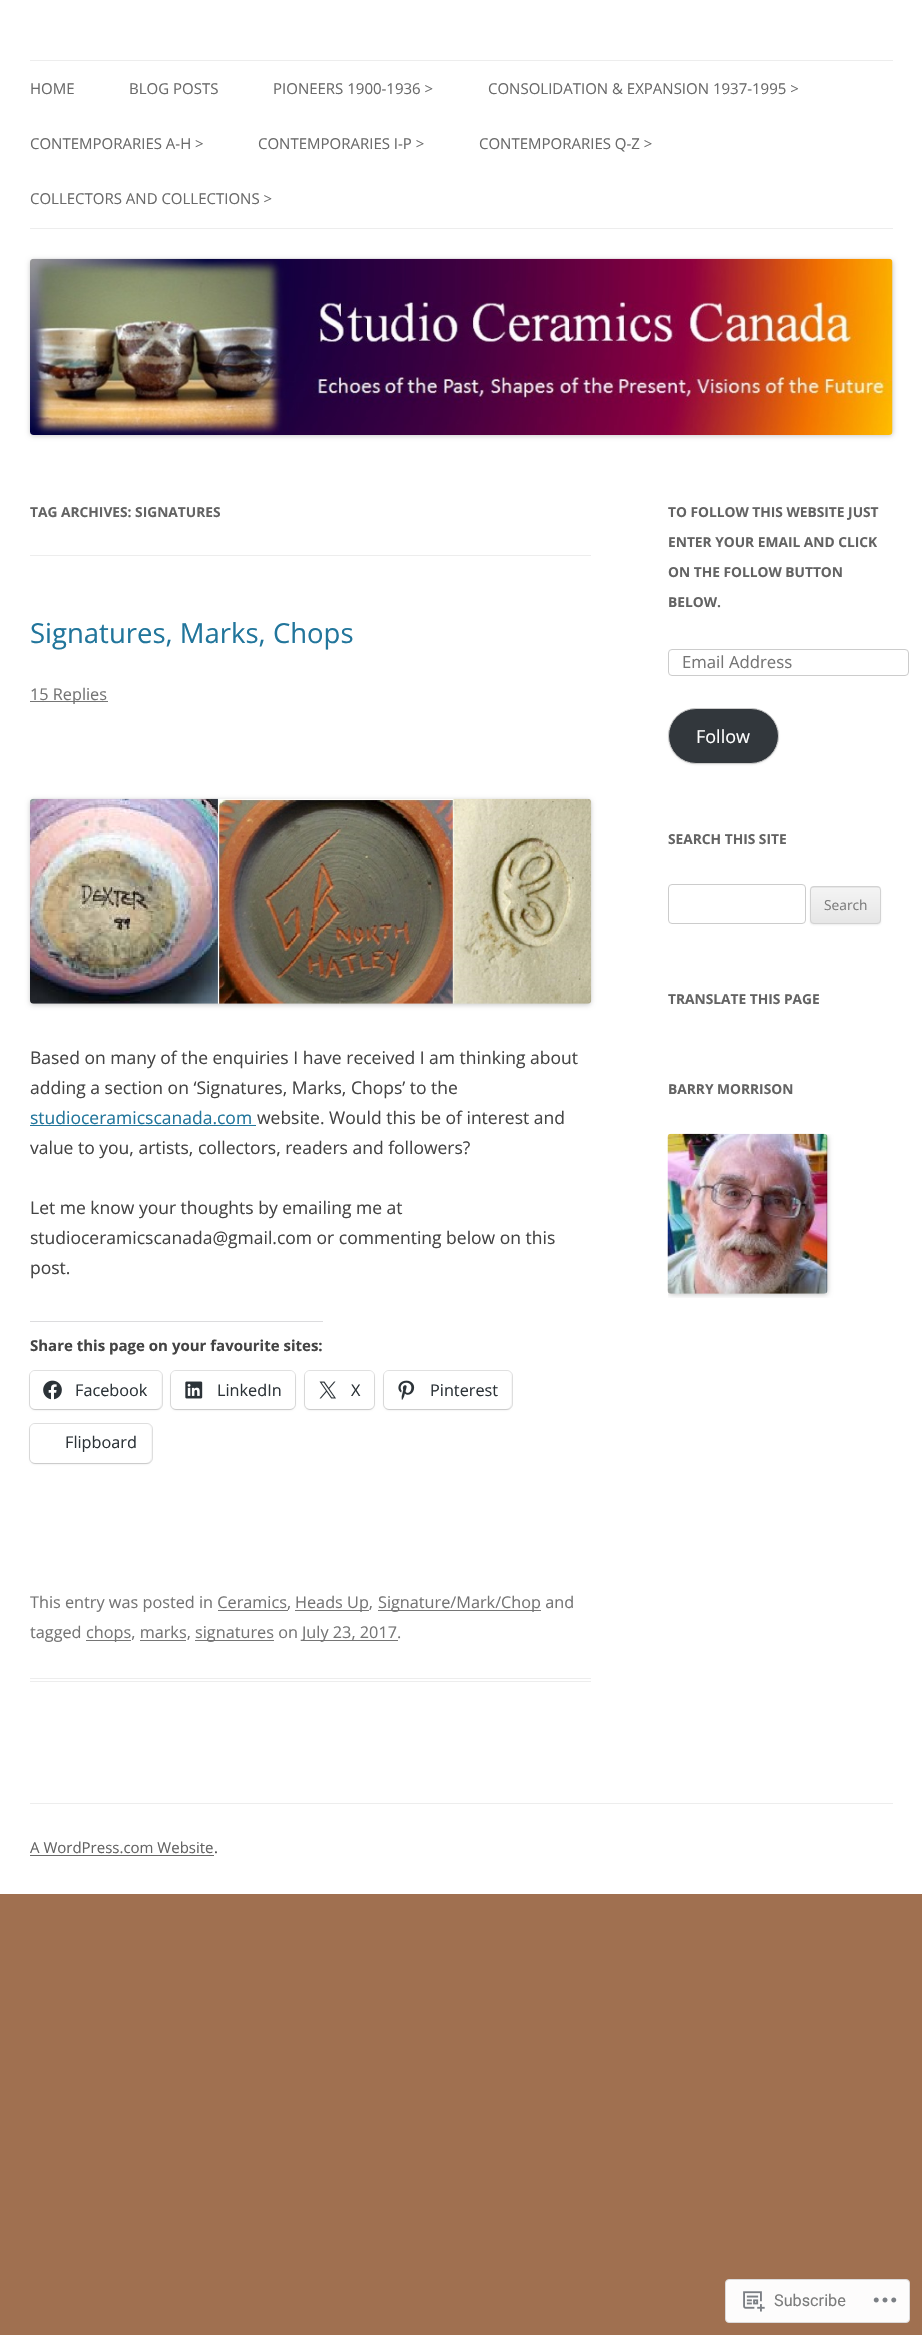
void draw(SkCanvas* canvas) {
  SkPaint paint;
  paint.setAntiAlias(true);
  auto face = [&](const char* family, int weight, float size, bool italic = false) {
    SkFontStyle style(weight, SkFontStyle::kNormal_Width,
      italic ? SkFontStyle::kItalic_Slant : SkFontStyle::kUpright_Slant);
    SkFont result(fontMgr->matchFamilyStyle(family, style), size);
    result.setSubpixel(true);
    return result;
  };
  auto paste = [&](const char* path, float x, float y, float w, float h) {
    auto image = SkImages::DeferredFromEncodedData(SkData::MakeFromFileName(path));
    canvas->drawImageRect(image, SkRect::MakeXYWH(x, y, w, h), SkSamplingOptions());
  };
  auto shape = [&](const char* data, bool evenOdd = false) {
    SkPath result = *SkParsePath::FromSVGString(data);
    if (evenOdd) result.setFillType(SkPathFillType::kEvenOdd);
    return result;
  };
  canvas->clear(0xffa07050);
  {
    const struct { float x, y, w, h; SkColor color; } items[] = {
      {0, 0, 922, 1894, 0xffffffff},
      {30, 60, 863, 1, 0xffededed},
      {30, 228, 863, 1, 0xffededed},
    };
    for (auto [x, y, w, h, color] : items) {
      paint.setColor(color);
      canvas->drawRect(SkRect::MakeXYWH(x, y, w, h), paint);
    }
  }
  paint.setColor(0x33000000);
  paint.setMaskFilter(SkMaskFilter::MakeBlur(kNormal_SkBlurStyle, 2.5f));
  canvas->drawRoundRect(SkRect::MakeXYWH(30, 260, 863, 176), 4, 4, paint);
  paint.setMaskFilter(nullptr);
  paste("img/1.png", 30, 258, 863, 177);
  {
    const struct { float x, y, w, h; SkColor color; } items[] = {
      {30, 555, 561, 1, 0xffededed},
      {30, 1678, 561, 1, 0xffededed},
      {30, 1681, 561, 1, 0xffededed},
      {30, 701, 78, 1, 0xff757575},
    };
    for (auto [x, y, w, h, color] : items) {
      paint.setColor(color);
      canvas->drawRect(SkRect::MakeXYWH(x, y, w, h), paint);
    }
  }
  paint.setColor(0x33000000);
  paint.setMaskFilter(SkMaskFilter::MakeBlur(kNormal_SkBlurStyle, 2.5f));
  canvas->drawRoundRect(SkRect::MakeXYWH(30, 800, 561, 205), 4, 4, paint);
  paint.setMaskFilter(nullptr);
  paste("img/2.png", 30, 798, 562, 206);
  paint.setColor(0xff21759b);
  canvas->drawRect(SkRect::MakeXYWH(30, 1125, 226, 1), paint);
  paint.setColor(0xffdcdcde);
  canvas->drawRect(SkRect::MakeXYWH(30, 1321, 293, 1), paint);
  paint.setStroke(true);
  paint.setStrokeWidth(1);
  paint.setColor(0xffe0e0e0);
  canvas->drawRoundRect(SkRect::MakeXYWH(29.5f, 1370.5f, 133, 39), 5.5f, 5.5f, paint);
  paint.setStroke(false);
  paint.setColor(0x1f000000);
  paint.setMaskFilter(SkMaskFilter::MakeBlur(kNormal_SkBlurStyle, 1));
  canvas->drawRoundRect(SkRect::MakeXYWH(30, 1373, 131, 37), 5, 5, paint);
  paint.setMaskFilter(nullptr);
  paint.setColor(0xffffffff);
  canvas->drawRoundRect(SkRect::MakeXYWH(30, 1371, 131, 38), 5, 5, paint);
  paste("img/3.png", 43, 1380, 19, 20);
  paint.setStroke(true);
  paint.setColor(0xffe0e0e0);
  canvas->drawRoundRect(SkRect::MakeXYWH(170.5f, 1370.5f, 125, 39), 5.5f, 5.5f, paint);
  paint.setStroke(false);
  paint.setColor(0x1f000000);
  paint.setMaskFilter(SkMaskFilter::MakeBlur(kNormal_SkBlurStyle, 1));
  canvas->drawRoundRect(SkRect::MakeXYWH(171, 1373, 124, 37), 5, 5, paint);
  paint.setMaskFilter(nullptr);
  paint.setColor(0xffffffff);
  canvas->drawRoundRect(SkRect::MakeXYWH(171, 1371, 124, 38), 5, 5, paint);
  paste("img/4.png", 185, 1381, 18, 18);
  paint.setStroke(true);
  paint.setColor(0xffe0e0e0);
  canvas->drawRoundRect(SkRect::MakeXYWH(304.5f, 1370.5f, 70, 39), 5.5f, 5.5f, paint);
  paint.setStroke(false);
  paint.setColor(0x1f000000);
  paint.setMaskFilter(SkMaskFilter::MakeBlur(kNormal_SkBlurStyle, 1));
  canvas->drawRoundRect(SkRect::MakeXYWH(305, 1373, 69, 37), 5, 5, paint);
  paint.setMaskFilter(nullptr);
  paint.setColor(0xffffffff);
  canvas->drawRoundRect(SkRect::MakeXYWH(305, 1371, 69, 38), 5, 5, paint);
  paste("img/5.png", 319, 1381, 17, 18);
  paint.setStroke(true);
  paint.setColor(0xffe0e0e0);
  canvas->drawRoundRect(SkRect::MakeXYWH(383.5f, 1370.5f, 129, 39), 5.5f, 5.5f, paint);
  paint.setStroke(false);
  paint.setColor(0x1f000000);
  paint.setMaskFilter(SkMaskFilter::MakeBlur(kNormal_SkBlurStyle, 1));
  canvas->drawRoundRect(SkRect::MakeXYWH(384, 1373, 127, 37), 5, 5, paint);
  paint.setMaskFilter(nullptr);
  paint.setColor(0xffffffff);
  canvas->drawRoundRect(SkRect::MakeXYWH(384, 1371, 127, 38), 5, 5, paint);
  paste("img/6.png", 398, 1380, 17, 20);
  paint.setStroke(true);
  paint.setColor(0xffe0e0e0);
  canvas->drawRoundRect(SkRect::MakeXYWH(29.5f, 1423.5f, 123, 40), 5.5f, 5.5f, paint);
  paint.setStroke(false);
  paint.setColor(0x1f000000);
  paint.setMaskFilter(SkMaskFilter::MakeBlur(kNormal_SkBlurStyle, 1));
  canvas->drawRoundRect(SkRect::MakeXYWH(30, 1425, 121, 39), 5, 5, paint);
  paint.setMaskFilter(nullptr);
  paint.setColor(0xffffffff);
  canvas->drawRoundRect(SkRect::MakeXYWH(30, 1424, 121, 39), 5, 5, paint);
  {
    const struct { float x, y, w, h; SkColor color; } items[] = {
      {295, 1610, 74, 1, 0xff757575},
      {378, 1610, 163, 1, 0xff757575},
      {218, 1610, 70, 1, 0xff757575},
      {86, 1640, 45, 1, 0xff757575},
      {195, 1640, 79, 1, 0xff757575},
      {303, 1640, 95, 1, 0xff757575},
      {140, 1640, 46, 1, 0xff757575},
    };
    for (auto [x, y, w, h, color] : items) {
      paint.setColor(color);
      canvas->drawRect(SkRect::MakeXYWH(x, y, w, h), paint);
    }
  }
  paint.setStroke(true);
  paint.setColor(0xffcccccc);
  canvas->drawRoundRect(SkRect::MakeXYWH(668.5f, 649.5f, 240, 26), 3.5f, 3.5f, paint);
  paint.setStroke(false);
  paint.setColor(0x1a404040);
  paint.setMaskFilter(SkMaskFilter::MakeBlur(kNormal_SkBlurStyle, 1));
  canvas->drawRoundRect(SkRect::MakeXYWH(668, 709, 111, 56), 28, 28, paint);
  paint.setMaskFilter(nullptr);
  paint.setColor(0xff32373c);
  canvas->drawRoundRect(SkRect::MakeXYWH(668.5f, 708.5f, 110, 55), 27.5f, 27.5f, paint);
  paint.setStroke(true);
  paint.setColor(0xffcccccc);
  canvas->drawRoundRect(SkRect::MakeXYWH(668.5f, 708.5f, 110, 55), 27.5f, 27.5f, paint);
  canvas->drawRoundRect(SkRect::MakeXYWH(668.5f, 884.5f, 137, 39), 3.5f, 3.5f, paint);
  paint.setStroke(false);
  paint.setColor(0x1a404040);
  paint.setMaskFilter(SkMaskFilter::MakeBlur(kNormal_SkBlurStyle, 1));
  canvas->drawRoundRect(SkRect::MakeXYWH(810, 888, 71, 37), 4, 4, paint);
  paint.setMaskFilter(nullptr);
  paint.setColor(0xffe6e6e6);
  canvas->drawRoundRect(SkRect::MakeXYWH(810, 886, 71, 38), 4, 4, paint);
  canvas->save();
  canvas->clipPath(shape("M814 886H877C879 886 881 888 881 890V920C881 922 879 924 877 924H814C812 924 810 922 810 920V890C810 888 812 886 814 886Z"), true);
  {
    const SkColor colors[] = {0xfff4f4f4, 0xffe6e6e6};
    const float stops[] = {0, 1};
    const SkPoint ends[] = {{846, 888}, {846, 923}};
    paint.setShader(SkGradientShader::MakeLinear(ends, colors, stops, 2, SkTileMode::kClamp));
    paint.setAlpha(255);
  }
  canvas->drawRect(SkRect::MakeXYWH(810, 888, 71, 35), paint);
  canvas->restore();
  paint.setStroke(true);
  paint.setShader(nullptr);
  paint.setColor(0xffd2d2d2);
  canvas->drawRoundRect(SkRect::MakeXYWH(810.5f, 886.5f, 70, 37), 3.5f, 3.5f, paint);
  canvas->save();
  canvas->clipRect(SkRect::MakeXYWH(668, 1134, 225, 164));
  paint.setStroke(false);
  paint.setColor(0x33000000);
  paint.setMaskFilter(SkMaskFilter::MakeBlur(kNormal_SkBlurStyle, 2.5f));
  canvas->drawRoundRect(SkRect::MakeXYWH(668, 1135, 160, 160), 4, 4, paint);
  paint.setMaskFilter(nullptr);
  canvas->restore();
  paste("img/7.png", 667, 1133, 161, 161);
  paint.setColor(0xffededed);
  canvas->drawRect(SkRect::MakeXYWH(30, 1803, 863, 1), paint);
  paint.setColor(0xff686868);
  canvas->drawRect(SkRect::MakeXYWH(30, 1855, 184, 1), paint);
  paint.setColor(0xfffdfcfc);
  canvas->drawRoundRect(SkRect::MakeXYWH(725.5f, 2279.5f, 184, 43), 3.5f, 3.5f, paint);
  paint.setStroke(true);
  paint.setColor(0xffdbdadb);
  canvas->drawRoundRect(SkRect::MakeXYWH(725.5f, 2279.5f, 184, 43), 3.5f, 3.5f, paint);
  paste("img/8.png", 743, 2291, 22, 21);
  paste("img/9.png", 873, 2297, 24, 6);
  auto f0 = face("Open Sans", 400, 15);
  paint.setStroke(false);
  paint.setColor(0xff6a6a6a);
  {
    const struct { const char* s; float x, y; } items[] = {
      {"HOME", 30, 94},
      {"BLOG POSTS", 129, 94},
      {"PIONEERS 1900-1936 >", 273, 94},
      {"CONSOLIDATION & EXPANSION 1937-1995 >", 488, 94},
      {"CONTEMPORARIES A-H >", 30, 149},
      {"CONTEMPORARIES I-P >", 258, 149},
      {"CONTEMPORARIES Q-Z >", 479, 149},
      {"COLLECTORS AND COLLECTIONS >", 30, 204},
    };
    for (auto [s, x, y] : items) {
      canvas->drawString(s, x, y, f0, paint);
    }
  }
  auto f1 = face("Open Sans", 700, 13.75f);
  paint.setColor(0xff636363);
  canvas->drawString("TAG ARCHIVES: SIGNATURES", 30, 517, f1, paint);
  auto f2 = face("Open Sans", 400, 27.5f);
  paint.setColor(0xff21759b);
  canvas->drawString("Signatures, Marks, Chops", 30, 643, f2, paint);
  auto f3 = face("Open Sans", 400, 16.25f);
  paint.setColor(0xff757575);
  canvas->drawString("15 Replies", 30, 700, f3, paint);
  auto f4 = face("Open Sans", 400, 17.5f);
  paint.setColor(0xff444444);
  canvas->drawString("Based on many of the enquiries I have received I am thinking about", 30, 1064, f4, paint);
  canvas->drawString("adding a section on ‘Signatures, Marks, Chops’ to the", 30, 1094, f4, paint);
  paint.setColor(0xff21759b);
  canvas->drawString("studioceramicscanada.com", 30, 1124, f4, paint);
  paint.setColor(0xff444444);
  {
    const struct { const char* s; float x, y; } items[] = {
      {"website. Would this be of interest and", 257, 1124},
      {"value to you, artists, collectors, readers and followers?", 30, 1154},
      {"Let me know your thoughts by emailing me at", 30, 1214},
      {"studioceramicscanada@gmail.com or commenting below on this", 30, 1244},
      {"post.", 30, 1274},
    };
    for (auto [s, x, y] : items) {
      canvas->drawString(s, x, y, f4, paint);
    }
  }
  auto f5 = face("Open Sans", 700, 15);
  canvas->drawString("Share this page on your favourite sites:", 30, 1351, f5, paint);
  paint.setColor(0xff2c3338);
  {
    const struct { const char* s; float x, y; } items[] = {
      {"Facebook", 75, 1396},
      {"LinkedIn", 217, 1396},
      {"X", 351, 1396},
      {"Pinterest", 430, 1396},
      {"Flipboard", 65, 1448},
    };
    for (auto [s, x, y] : items) {
      canvas->drawString(s, x, y, f3, paint);
    }
  }
  paint.setColor(0xff757575);
  {
    const struct { const char* s; float x, y; } items[] = {
      {"This entry was posted in Ceramics", 30, 1608},
      {",", 287, 1608},
      {"Heads Up,", 295, 1608},
      {"Signature/Mark/Chop and", 378, 1608},
      {"tagged", 30, 1638},
      {"chops, marks,", 86, 1638},
      {"signatures on", 195, 1638},
      {"July 23, 2017.", 302, 1638},
    };
    for (auto [s, x, y] : items) {
      canvas->drawString(s, x, y, f3, paint);
    }
  }
  paint.setColor(0xff636363);
  {
    const struct { const char* s; float x, y; } items[] = {
      {"TO FOLLOW THIS WEBSITE JUST", 668, 517},
      {"ENTER YOUR EMAIL AND CLICK", 668, 547},
      {"ON THE FOLLOW BUTTON", 668, 577},
      {"BELOW.", 668, 607},
    };
    for (auto [s, x, y] : items) {
      canvas->drawString(s, x, y, f1, paint);
    }
  }
  auto f6 = face("Open Sans", 400, 16.75f);
  paint.setColor(0xff757575);
  canvas->drawString("Email Address", 682, 668, f6, paint);
  auto f7 = face("Open Sans", 400, 18);
  paint.setColor(0xffffffff);
  canvas->drawString("Follow", 696, 743, f7, paint);
  paint.setColor(0xff636363);
  canvas->drawString("SEARCH THIS SITE", 668, 844, f1, paint);
  auto f8 = face("Open Sans", 400, 13.75f);
  paint.setColor(0xff7c7c7c);
  canvas->drawString("Search", 824, 910, f8, paint);
  paint.setColor(0xff636363);
  canvas->drawString("TRANSLATE THIS PAGE", 668, 1004, f1, paint);
  canvas->drawString("BARRY MORRISON", 668, 1094, f1, paint);
  canvas->drawString("A WordPress.com Website", 30, 1853, f0, paint);
  paint.setColor(0xff444444);
  canvas->drawString(".", 214, 1853, f0, paint);
  auto f9 = face("Roboto", 400, 16.25f);
  paint.setColor(0xff7c7c7c);
  canvas->drawString("Subscribe", 774, 2306, f9, paint);
}
